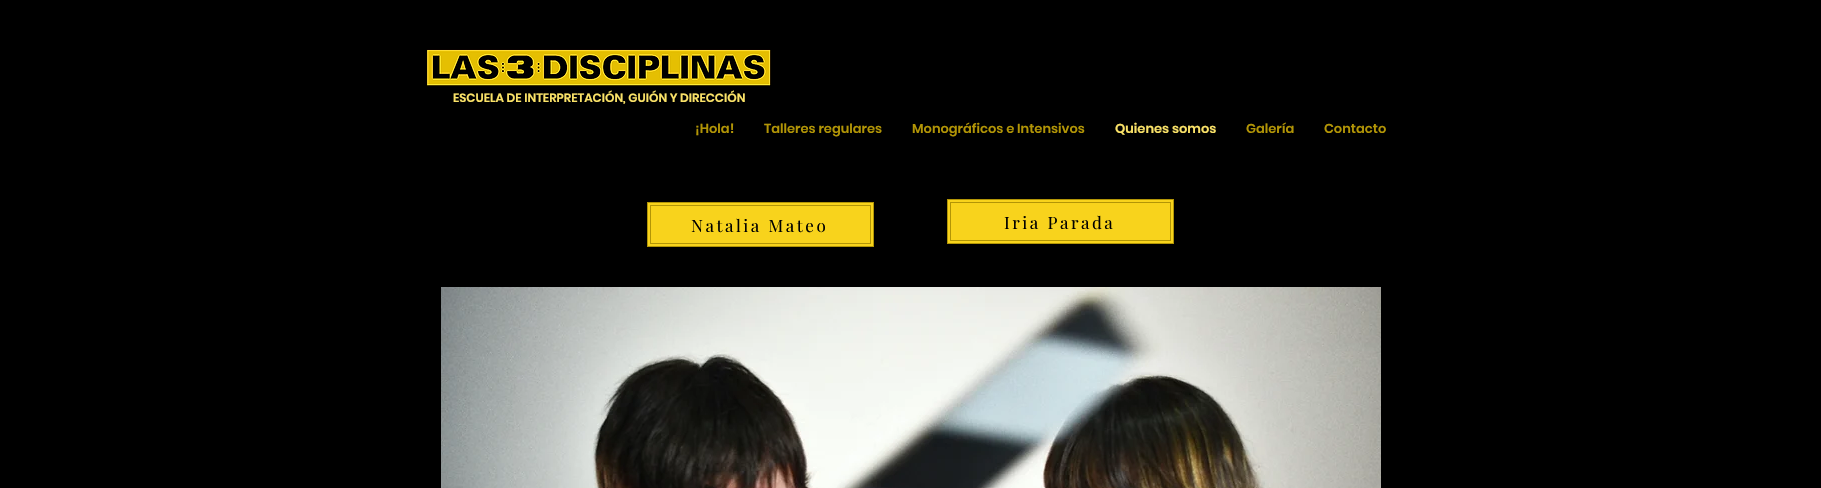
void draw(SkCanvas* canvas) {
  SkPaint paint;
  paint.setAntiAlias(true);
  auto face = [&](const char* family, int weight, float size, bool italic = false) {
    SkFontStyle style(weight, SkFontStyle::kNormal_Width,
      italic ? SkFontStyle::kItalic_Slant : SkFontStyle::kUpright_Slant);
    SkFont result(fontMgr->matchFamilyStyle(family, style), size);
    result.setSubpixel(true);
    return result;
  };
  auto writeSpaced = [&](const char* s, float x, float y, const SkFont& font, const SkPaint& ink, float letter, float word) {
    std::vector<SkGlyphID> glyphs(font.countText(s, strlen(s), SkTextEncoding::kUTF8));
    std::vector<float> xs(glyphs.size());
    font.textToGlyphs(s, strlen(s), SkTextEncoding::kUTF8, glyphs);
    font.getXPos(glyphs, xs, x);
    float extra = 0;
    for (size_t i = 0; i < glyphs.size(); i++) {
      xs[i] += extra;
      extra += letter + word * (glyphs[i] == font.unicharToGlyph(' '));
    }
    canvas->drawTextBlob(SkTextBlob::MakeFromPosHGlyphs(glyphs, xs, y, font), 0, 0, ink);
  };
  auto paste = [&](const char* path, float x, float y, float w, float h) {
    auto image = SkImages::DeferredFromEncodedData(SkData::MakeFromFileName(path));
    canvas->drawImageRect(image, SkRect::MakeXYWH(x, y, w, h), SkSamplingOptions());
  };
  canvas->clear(0xff000000);
  paste("img/1.png", 427, 49, 344, 37);
  paint.setColor(0xfff8d31c);
  canvas->drawRect(SkRect::MakeXYWH(647.5f, 202.5f, 226, 44), paint);
  paint.setStroke(true);
  paint.setStrokeWidth(1);
  paint.setColor(0xffb29506);
  canvas->drawRect(SkRect::MakeXYWH(647.5f, 202.5f, 226, 44), paint);
  canvas->drawRect(SkRect::MakeXYWH(650.5f, 205.5f, 220, 38), paint);
  paint.setStroke(false);
  paint.setColor(0xfff8d31c);
  canvas->drawRect(SkRect::MakeXYWH(947.5f, 199.5f, 226, 44), paint);
  paint.setStroke(true);
  paint.setColor(0xffb29506);
  canvas->drawRect(SkRect::MakeXYWH(947.5f, 199.5f, 226, 44), paint);
  canvas->drawRect(SkRect::MakeXYWH(950.5f, 202.5f, 220, 38), paint);
  paste("img/2.png", 441, 287, 940, 201);
  auto f0 = face("Poppins", 600, 12);
  paint.setStroke(false);
  paint.setColor(0xfffae268);
  canvas->drawString("ESCUELA DE INTERPRETACIÓN, GUIÓN Y DIRECCIÓN", 453, 102, f0, paint);
  auto f1 = face("Poppins", 600, 13);
  paint.setColor(0xffb29506);
  {
    const struct { const char* s; float x, y; } items[] = {
      {"¡Hola!", 695, 133},
      {"Talleres regulares", 764, 133},
      {"Monográficos e Intensivos", 912, 133},
    };
    for (auto [s, x, y] : items) {
      canvas->drawString(s, x, y, f1, paint);
    }
  }
  paint.setColor(0xfffae268);
  canvas->drawString("Quienes somos", 1115, 133, f1, paint);
  paint.setColor(0xffb29506);
  canvas->drawString("Galería", 1246, 133, f1, paint);
  canvas->drawString("Contacto", 1324, 133, f1, paint);
  auto f2 = face("Playfair Display", 400, 17);
  paint.setColor(0xff000000);
  writeSpaced("Natalia Mateo", 691, 232, f2, paint, 2.5f, 0);
  writeSpaced("Iria Parada", 1004, 229, f2, paint, 2.5f, 0);
}
